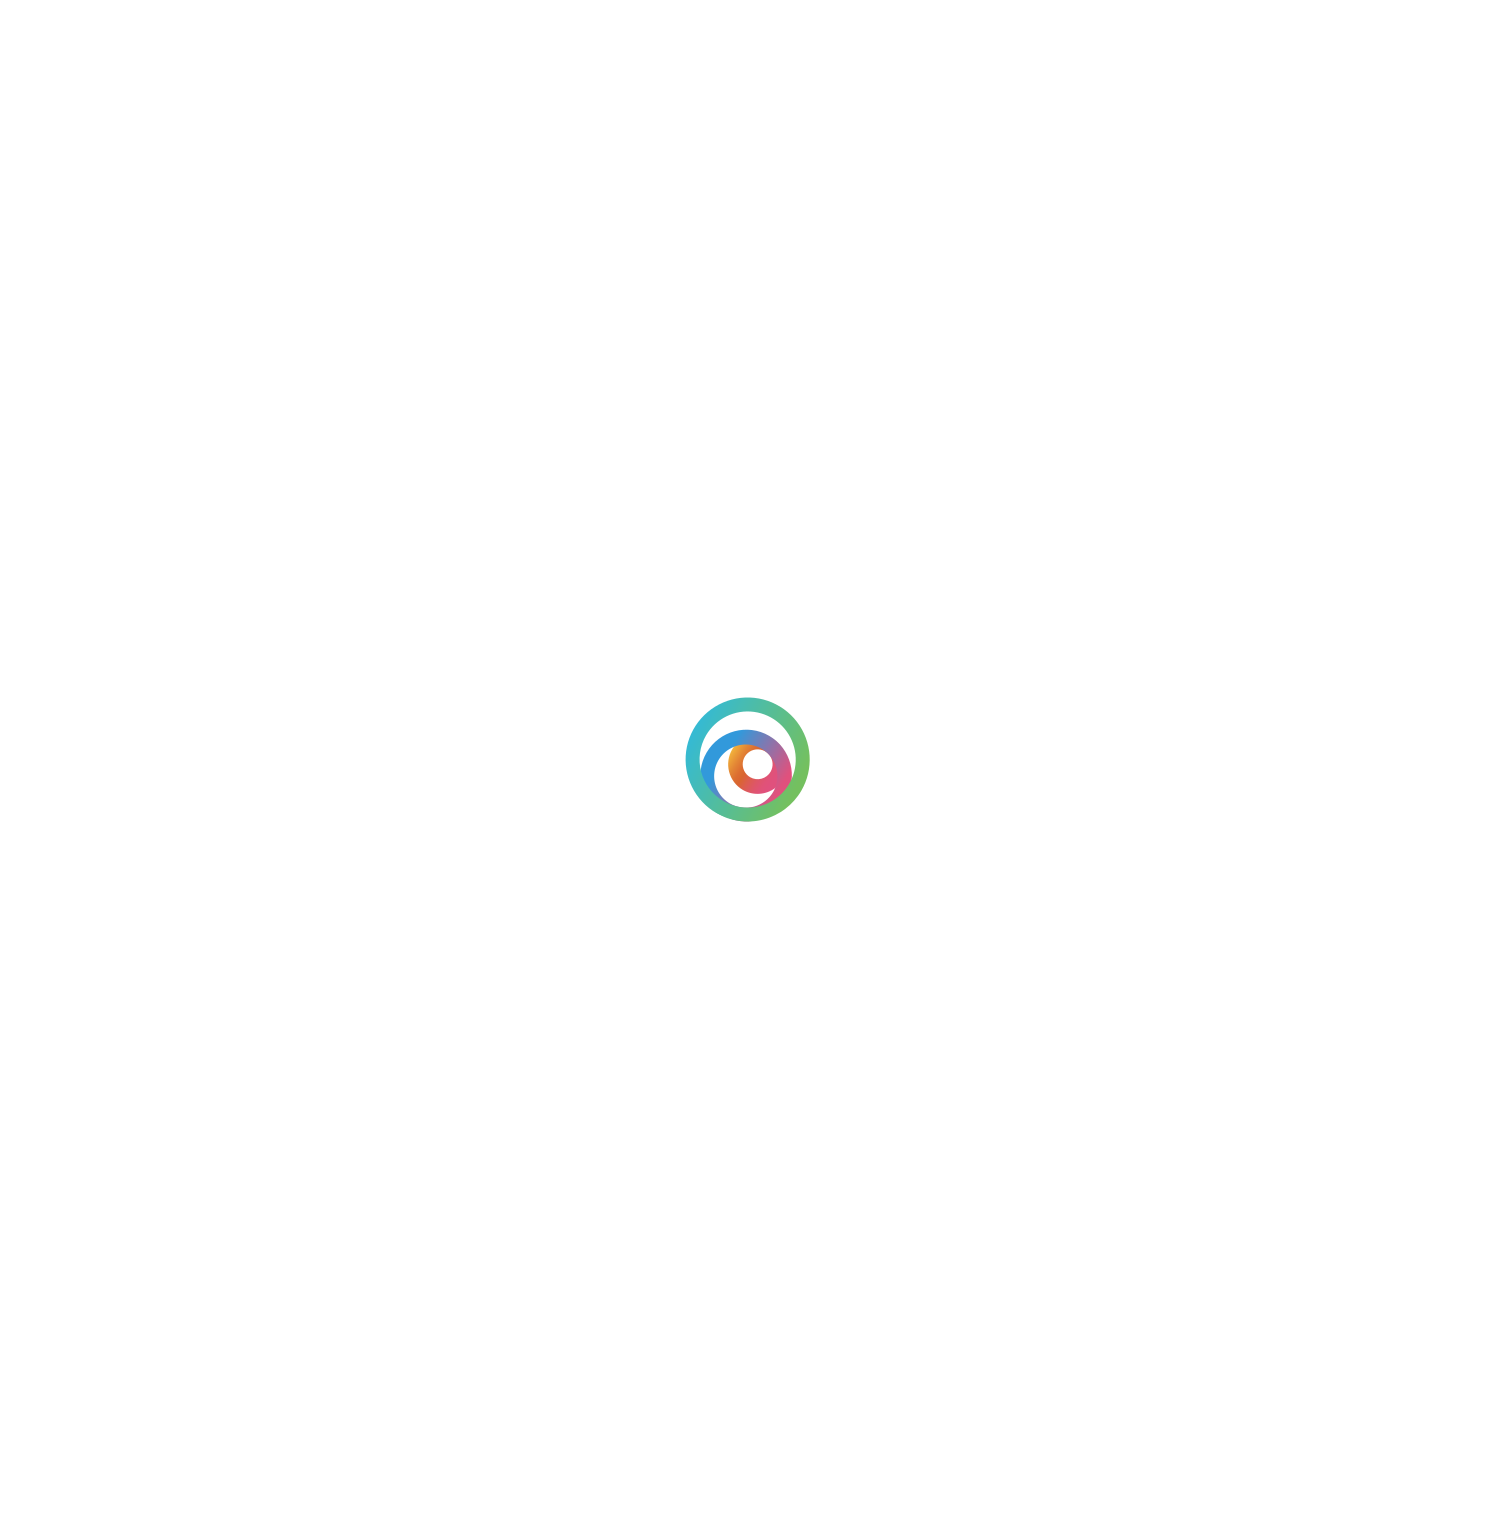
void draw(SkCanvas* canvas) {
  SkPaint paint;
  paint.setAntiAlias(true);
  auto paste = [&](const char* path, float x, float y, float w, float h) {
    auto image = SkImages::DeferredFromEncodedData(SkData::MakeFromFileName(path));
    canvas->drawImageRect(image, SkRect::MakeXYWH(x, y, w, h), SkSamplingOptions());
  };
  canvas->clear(0xffffffff);
  paste("img/1.png", 685, 697, 125, 125);
}
